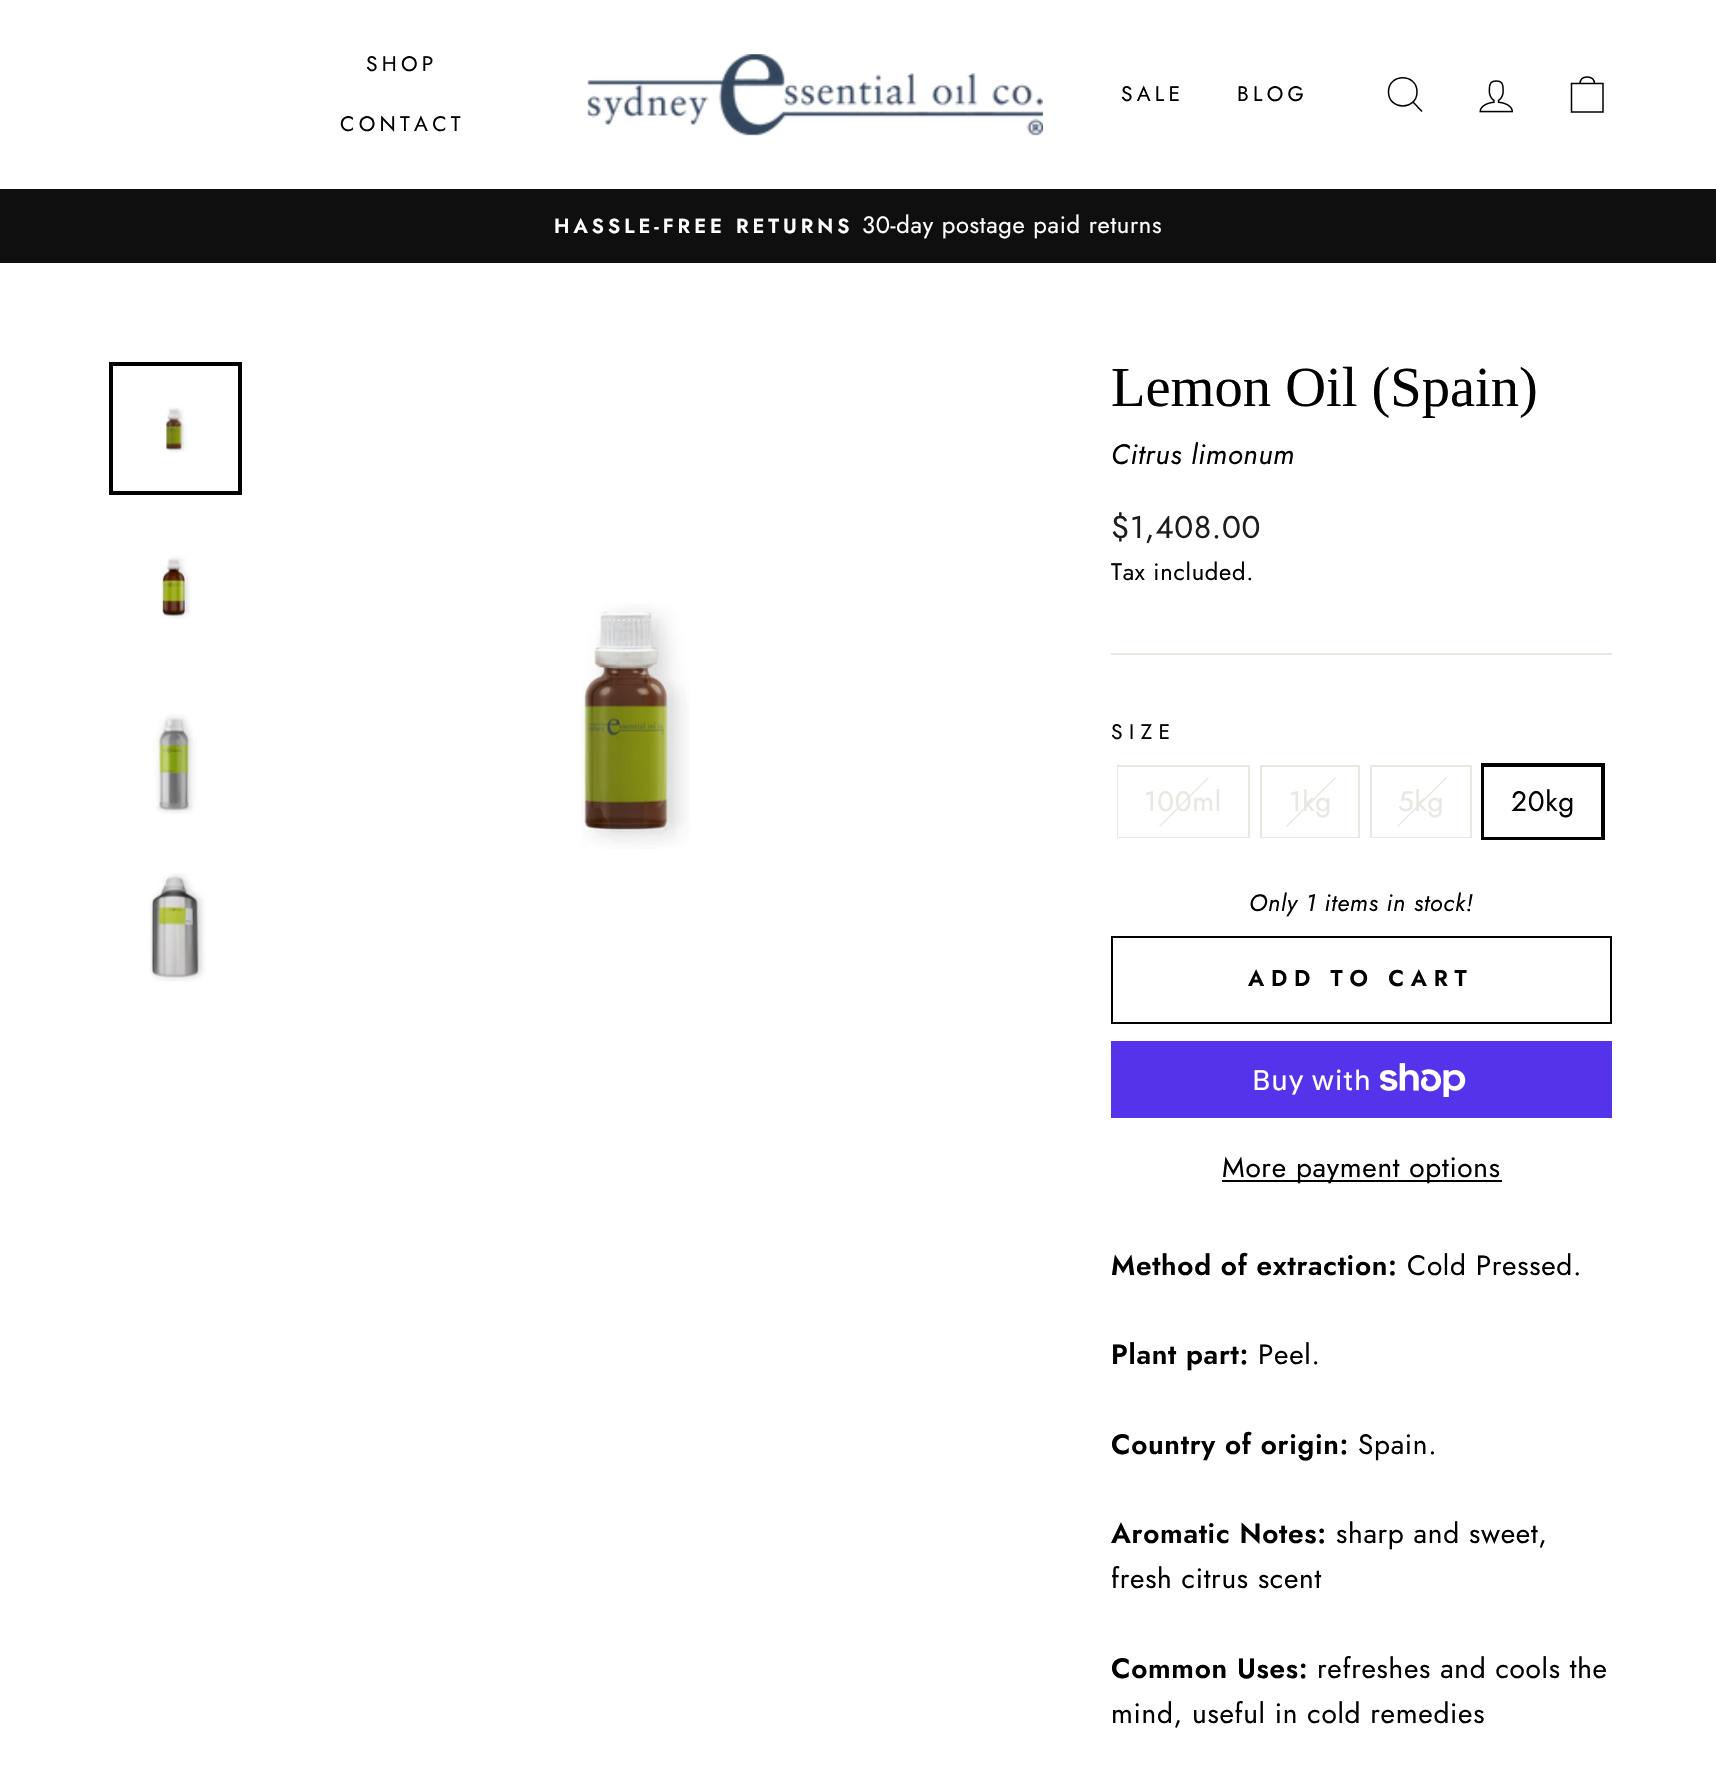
void draw(SkCanvas* canvas) {
  SkPaint paint;
  paint.setAntiAlias(true);
  auto face = [&](const char* family, int weight, float size, bool italic = false) {
    SkFontStyle style(weight, SkFontStyle::kNormal_Width,
      italic ? SkFontStyle::kItalic_Slant : SkFontStyle::kUpright_Slant);
    SkFont result(fontMgr->matchFamilyStyle(family, style), size);
    result.setSubpixel(true);
    return result;
  };
  auto writeSpaced = [&](const char* s, float x, float y, const SkFont& font, const SkPaint& ink, float letter, float word) {
    std::vector<SkGlyphID> glyphs(font.countText(s, strlen(s), SkTextEncoding::kUTF8));
    std::vector<float> xs(glyphs.size());
    font.textToGlyphs(s, strlen(s), SkTextEncoding::kUTF8, glyphs);
    font.getXPos(glyphs, xs, x);
    float extra = 0;
    for (size_t i = 0; i < glyphs.size(); i++) {
      xs[i] += extra;
      extra += letter + word * (glyphs[i] == font.unicharToGlyph(' '));
    }
    canvas->drawTextBlob(SkTextBlob::MakeFromPosHGlyphs(glyphs, xs, y, font), 0, 0, ink);
  };
  auto paste = [&](const char* path, float x, float y, float w, float h) {
    auto image = SkImages::DeferredFromEncodedData(SkData::MakeFromFileName(path));
    canvas->drawImageRect(image, SkRect::MakeXYWH(x, y, w, h), SkSamplingOptions());
  };
  auto shape = [&](const char* data, bool evenOdd = false) {
    SkPath result = *SkParsePath::FromSVGString(data);
    if (evenOdd) result.setFillType(SkPathFillType::kEvenOdd);
    return result;
  };
  canvas->clear(0xffffffff);
  paste("img/1.png", 587, 54, 456, 82);
  paint.setStroke(true);
  paint.setStrokeWidth(1.5f);
  paint.setColor(0xff000000);
  canvas->drawPath(shape("M1417 92C1417 110.5 1388.5 110.5 1388.5 92C1388.5 73 1417 73 1417 92ZM1422 111.5L1413 102"), paint);
  paste("img/2.png", 1479, 80, 34, 33);
  canvas->drawPath(shape("M1571.5 83.5H1603V112H1571.5ZM1580 84C1580 78.5 1583 77 1587 77C1591.5 77 1594.5 78.5 1594.5 84"), paint);
  paint.setStroke(false);
  paint.setColor(0xff0f0f0f);
  canvas->drawRect(SkRect::MakeXYWH(0, 189, 1716, 74), paint);
  paste("img/3.png", 165, 407, 23, 46);
  paint.setStroke(true);
  paint.setStrokeWidth(4);
  paint.setColor(0xff000000);
  canvas->drawRect(SkRect::MakeXYWH(111, 364, 129, 129), paint);
  paste("img/4.png", 161, 555, 30, 64);
  paste("img/5.png", 154, 714, 43, 100);
  paste("img/6.png", 149, 873, 57, 109);
  paste("img/7.png", 581, 604, 109, 245);
  paint.setStroke(false);
  paint.setColor(0xffe8e8e1);
  canvas->drawRect(SkRect::MakeXYWH(1111, 653, 501, 2), paint);
  paint.setStroke(true);
  paint.setStrokeWidth(2);
  canvas->drawRect(SkRect::MakeXYWH(1118, 766, 131, 71), paint);
  paint.setStroke(false);
  paint.setColor(0xffffffff);
  canvas->drawRect(SkRect::MakeXYWH(1118, 767, 130, 70), paint);
  paint.setColor(0xffe8e8e1);
  canvas->drawPath(shape("M1208 777L1209 778L1160 827L1159 826Z"), paint);
  paint.setStroke(true);
  canvas->drawRect(SkRect::MakeXYWH(1261, 766, 98, 71), paint);
  paint.setStroke(false);
  paint.setColor(0xffffffff);
  canvas->drawRect(SkRect::MakeXYWH(1262, 836, 96, 1), paint);
  paint.setColor(0xffe8e8e1);
  canvas->drawPath(shape("M1335 777L1336 778L1287 827L1286 826Z"), paint);
  paint.setStroke(true);
  canvas->drawRect(SkRect::MakeXYWH(1371, 766, 100, 71), paint);
  paint.setStroke(false);
  paint.setColor(0xffffffff);
  canvas->drawRect(SkRect::MakeXYWH(1372, 836, 98, 1), paint);
  paint.setColor(0xffe8e8e1);
  canvas->drawPath(shape("M1446 777L1447 778L1398 827L1397 826Z"), paint);
  paint.setStroke(true);
  paint.setStrokeWidth(4);
  paint.setColor(0xff000000);
  canvas->drawRect(SkRect::MakeXYWH(1483, 765, 120, 73), paint);
  paint.setStroke(false);
  paint.setColor(0xffffffff);
  canvas->drawRect(SkRect::MakeXYWH(1484, 767, 117, 70), paint);
  paint.setStroke(true);
  paint.setStrokeWidth(2);
  paint.setColor(0xff000000);
  canvas->drawRect(SkRect::MakeXYWH(1112, 937, 499, 86), paint);
  paint.setStroke(false);
  paint.setColor(0xff5433eb);
  canvas->drawRect(SkRect::MakeXYWH(1111, 1041, 501, 77), paint);
  paste("img/8.png", 1380, 1063, 86, 34);
  paint.setColor(0xff000000);
  canvas->drawRect(SkRect::MakeXYWH(1222, 1180, 280, 2), paint);
  auto f0 = face("Jost", 400, 21);
  {
    const struct { const char* s; float x, y; } items[] = {
      {"SHOP", 366, 71},
      {"CONTACT", 340, 131},
      {"SALE", 1121, 101},
      {"BLOG", 1237, 101},
    };
    for (auto [s, x, y] : items) {
      writeSpaced(s, x, y, f0, paint, 4.25f, 0);
    }
  }
  auto f1 = face("Jost", 600, 20.25f);
  paint.setColor(0xffffffff);
  writeSpaced("HASSLE-FREE RETURNS", 554, 233, f1, paint, 4, 0);
  auto f2 = face("Jost", 400, 23.75f);
  writeSpaced("30-day postage paid returns", 862, 233, f2, paint, 0.7f, 0);
  auto f3 = face("Liberation Serif", 400, 56.5f);
  paint.setColor(0xff000000);
  canvas->drawString("Lemon Oil (Spain)", 1111, 406, f3, paint);
  auto f4 = face("Jost", 400, 28, true);
  writeSpaced("Citrus limonum", 1111, 464, f4, paint, 0.7f, 0);
  auto f5 = face("Jost", 400, 31.5f);
  paint.setColor(0xff1c1d1d);
  writeSpaced("$1,408.00", 1111, 538, f5, paint, 0.7f, 0);
  paint.setColor(0xff000000);
  writeSpaced("Tax included.", 1111, 580, f2, paint, 0.7f, 0);
  writeSpaced("SIZE", 1111, 739, f0, paint, 6.5f, 0);
  auto f6 = face("Jost", 400, 28);
  paint.setColor(0xffe8e8e1);
  {
    const struct { const char* s; float x, y; } items[] = {
      {"100ml", 1144, 811},
      {"1kg", 1289, 811},
      {"5kg", 1398, 811},
    };
    for (auto [s, x, y] : items) {
      writeSpaced(s, x, y, f6, paint, 0.7f, 0);
    }
  }
  paint.setColor(0xff000000);
  writeSpaced("20kg", 1511, 811, f6, paint, 0.7f, 0);
  auto f7 = face("Jost", 400, 23.75f, true);
  writeSpaced("Only 1 items in stock!", 1249, 911, f7, paint, 0.7f, 0);
  auto f8 = face("Jost", 600, 22.75f);
  writeSpaced("ADD TO CART", 1248, 986, f8, paint, 6.75f, 0);
  auto f9 = face("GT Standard", 400, 28);
  paint.setColor(0xffffffff);
  writeSpaced("Buy with", 1252, 1090, f9, paint, 0.7f, 0);
  paint.setColor(0xff000000);
  writeSpaced("More payment options", 1222, 1177, f6, paint, 0.7f, 0);
  auto f10 = face("Jost", 600, 28);
  writeSpaced("Method of extraction:", 1111, 1275, f10, paint, 0.7f, 0);
  writeSpaced("Cold Pressed.", 1407, 1275, f6, paint, 0.7f, 0);
  writeSpaced("Plant part:", 1111, 1364, f10, paint, 0.7f, 0);
  writeSpaced("Peel.", 1258, 1364, f6, paint, 0.7f, 0);
  writeSpaced("Country of origin:", 1111, 1454, f10, paint, 0.7f, 0);
  writeSpaced("Spain.", 1358, 1454, f6, paint, 0.7f, 0);
  writeSpaced("Aromatic Notes:", 1111, 1543, f10, paint, 0.7f, 0);
  writeSpaced("sharp and sweet,", 1336, 1543, f6, paint, 0.7f, 0);
  writeSpaced("fresh citrus scent", 1111, 1588, f6, paint, 0.7f, 0);
  writeSpaced("Common Uses:", 1111, 1678, f10, paint, 0.7f, 0);
  writeSpaced("refreshes and cools the", 1317, 1678, f6, paint, 0.7f, 0);
  writeSpaced("mind, useful in cold remedies", 1111, 1723, f6, paint, 0.7f, 0);
}
